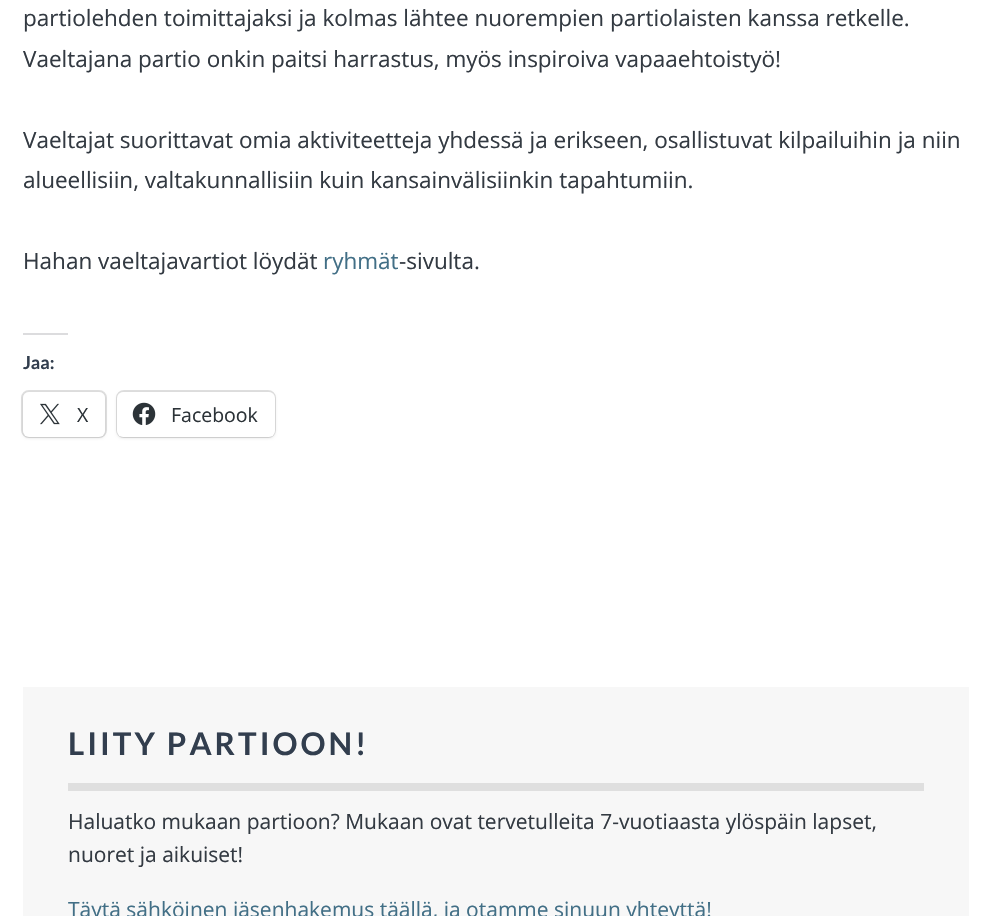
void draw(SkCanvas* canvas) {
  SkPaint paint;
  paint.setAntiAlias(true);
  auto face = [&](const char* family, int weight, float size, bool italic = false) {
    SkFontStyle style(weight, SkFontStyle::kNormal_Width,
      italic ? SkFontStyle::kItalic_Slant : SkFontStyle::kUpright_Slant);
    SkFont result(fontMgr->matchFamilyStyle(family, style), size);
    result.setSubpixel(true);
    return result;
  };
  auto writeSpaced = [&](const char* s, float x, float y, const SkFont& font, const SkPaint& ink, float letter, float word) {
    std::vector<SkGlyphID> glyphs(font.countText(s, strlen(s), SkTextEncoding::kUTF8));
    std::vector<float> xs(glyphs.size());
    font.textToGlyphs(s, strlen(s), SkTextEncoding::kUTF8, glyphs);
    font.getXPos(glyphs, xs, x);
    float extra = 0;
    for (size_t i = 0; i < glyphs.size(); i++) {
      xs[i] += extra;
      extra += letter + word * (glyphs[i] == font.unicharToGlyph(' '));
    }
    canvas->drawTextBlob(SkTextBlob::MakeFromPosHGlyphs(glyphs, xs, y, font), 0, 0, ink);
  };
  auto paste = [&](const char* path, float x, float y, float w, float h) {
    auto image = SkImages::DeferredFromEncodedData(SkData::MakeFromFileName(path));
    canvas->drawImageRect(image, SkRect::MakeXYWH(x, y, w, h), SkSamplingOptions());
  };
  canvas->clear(0xffffffff);
  paint.setColor(0xffdcdcde);
  canvas->drawRect(SkRect::MakeXYWH(23, 333, 45, 2), paint);
  paint.setStroke(true);
  paint.setStrokeWidth(2);
  paint.setColor(0xffe0e0e0);
  canvas->drawRoundRect(SkRect::MakeXYWH(22, 391, 84, 46), 7, 7, paint);
  paint.setStroke(false);
  paint.setColor(0x1f000000);
  paint.setMaskFilter(SkMaskFilter::MakeBlur(kNormal_SkBlurStyle, 1.5f));
  canvas->drawRoundRect(SkRect::MakeXYWH(23, 393, 82, 45), 6, 6, paint);
  paint.setMaskFilter(nullptr);
  paint.setColor(0xffffffff);
  canvas->drawRoundRect(SkRect::MakeXYWH(23, 392, 82, 45), 6, 6, paint);
  paste("img/1.png", 40, 403, 20, 22);
  paint.setStroke(true);
  paint.setColor(0xffe0e0e0);
  canvas->drawRoundRect(SkRect::MakeXYWH(117, 391, 158, 46), 7, 7, paint);
  paint.setStroke(false);
  paint.setColor(0x1f000000);
  paint.setMaskFilter(SkMaskFilter::MakeBlur(kNormal_SkBlurStyle, 1.5f));
  canvas->drawRoundRect(SkRect::MakeXYWH(117, 393, 158, 45), 6, 6, paint);
  paint.setMaskFilter(nullptr);
  paint.setColor(0xffffffff);
  canvas->drawRoundRect(SkRect::MakeXYWH(117, 392, 158, 45), 6, 6, paint);
  paste("img/2.png", 132, 402, 24, 23);
  paint.setColor(0xfff7f7f7);
  canvas->drawRect(SkRect::MakeXYWH(23, 687, 946, 229), paint);
  paint.setColor(0xffdfdfdf);
  canvas->drawRect(SkRect::MakeXYWH(68, 783, 856, 8), paint);
  auto f0 = face("Open Sans", 400, 22.5f);
  paint.setColor(0xff333a42);
  {
    const struct { const char* s; float x, y; } items[] = {
      {"partiolehden toimittajaksi ja kolmas lähtee nuorempien partiolaisten kanssa retkelle.", 23, 26},
      {"Vaeltajana partio onkin paitsi harrastus, myös inspiroiva vapaaehtoistyö!", 23, 67},
      {"Vaeltajat suorittavat omia aktiviteetteja yhdessä ja erikseen, osallistuvat kilpailuihin ja niin", 23, 148},
      {"alueellisiin, valtakunnallisiin kuin kansainvälisiinkin tapahtumiin.", 23, 188},
      {"Hahan vaeltajavartiot löydät", 23, 269},
    };
    for (auto [s, x, y] : items) {
      canvas->drawString(s, x, y, f0, paint);
    }
  }
  paint.setColor(0xff426f86);
  canvas->drawString("ryhmät", 323, 269, f0, paint);
  paint.setColor(0xff333a42);
  canvas->drawString("-sivulta.", 399, 269, f0, paint);
  auto f1 = face("Lato", 700, 18);
  paint.setColor(0xff323e4e);
  canvas->drawString("Jaa:", 23, 369, f1, paint);
  auto f2 = face("Open Sans", 400, 19.5f);
  paint.setColor(0xff2c3338);
  canvas->drawString("X", 77, 422, f2, paint);
  canvas->drawString("Facebook", 171, 422, f2, paint);
  auto f3 = face("Lato", 700, 31.25f);
  paint.setColor(0xff323e4e);
  writeSpaced("LIITY PARTIOON!", 68, 755, f3, paint, 3, 0);
  auto f4 = face("Open Sans", 400, 21);
  paint.setColor(0xff333a42);
  canvas->drawString("Haluatko mukaan partioon? Mukaan ovat tervetulleita 7-vuotiaasta ylöspäin lapset,", 68, 829, f4, paint);
  canvas->drawString("nuoret ja aikuiset!", 68, 862, f4, paint);
  paint.setColor(0xff426f86);
  canvas->drawString("Täytä sähköinen jäsenhakemus täällä, ja otamme sinuun yhteyttä!", 68, 917, f4, paint);
}
